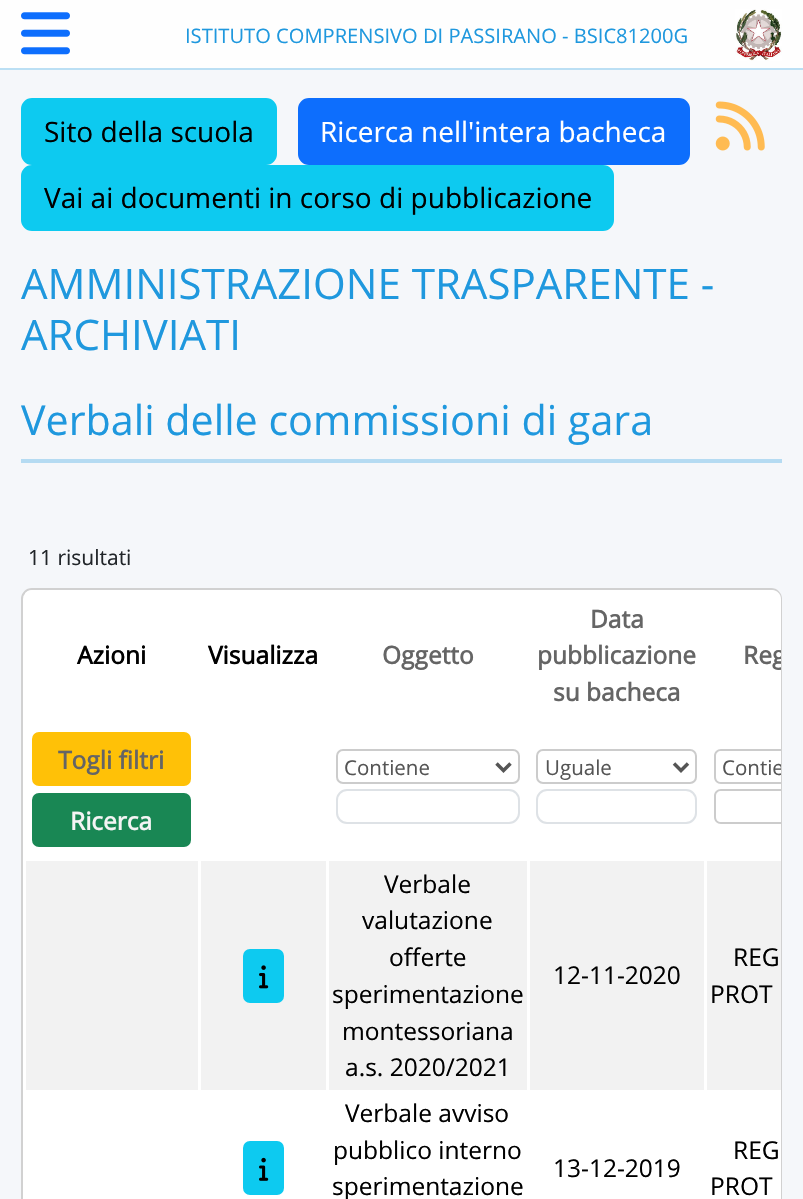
void draw(SkCanvas* canvas) {
  SkPaint paint;
  paint.setAntiAlias(true);
  auto face = [&](const char* family, int weight, float size, bool italic = false) {
    SkFontStyle style(weight, SkFontStyle::kNormal_Width,
      italic ? SkFontStyle::kItalic_Slant : SkFontStyle::kUpright_Slant);
    SkFont result(fontMgr->matchFamilyStyle(family, style), size);
    result.setSubpixel(true);
    return result;
  };
  auto paste = [&](const char* path, float x, float y, float w, float h) {
    auto image = SkImages::DeferredFromEncodedData(SkData::MakeFromFileName(path));
    canvas->drawImageRect(image, SkRect::MakeXYWH(x, y, w, h), SkSamplingOptions());
  };
  auto shape = [&](const char* data, bool evenOdd = false) {
    SkPath result = *SkParsePath::FromSVGString(data);
    if (evenOdd) result.setFillType(SkPathFillType::kEvenOdd);
    return result;
  };
  canvas->clear(0xfff5f7fa);
  paint.setColor(0xfffefefe);
  canvas->drawRect(SkRect::MakeXYWH(0, 0, 803, 68), paint);
  paint.setColor(0xffbbdff4);
  canvas->drawRect(SkRect::MakeXYWH(0, 68, 803, 2), paint);
  paste("img/1.png", 21, 12, 49, 43);
  paste("img/2.png", 735, 9, 47, 52);
  paint.setColor(0xff0dcaf0);
  canvas->drawRoundRect(SkRect::MakeXYWH(22, 99, 254, 65), 10, 10, paint);
  paint.setStroke(true);
  paint.setStrokeWidth(2);
  canvas->drawRoundRect(SkRect::MakeXYWH(22, 99, 254, 65), 10, 10, paint);
  paint.setStroke(false);
  paint.setColor(0xff0d6efd);
  canvas->drawRoundRect(SkRect::MakeXYWH(299, 99, 390, 65), 10, 10, paint);
  paint.setStroke(true);
  canvas->drawRoundRect(SkRect::MakeXYWH(299, 99, 390, 65), 10, 10, paint);
  paint.setStroke(false);
  paint.setColor(0xff0dcaf0);
  canvas->drawRoundRect(SkRect::MakeXYWH(22, 166, 591, 64), 10, 10, paint);
  paint.setStroke(true);
  canvas->drawRoundRect(SkRect::MakeXYWH(22, 166, 591, 64), 10, 10, paint);
  paste("img/3.png", 715, 101, 50, 50);
  paint.setStroke(false);
  paint.setColor(0xffb5dbf2);
  canvas->drawRect(SkRect::MakeXYWH(21, 459, 761, 4), paint);
  paint.setColor(0xffffffff);
  canvas->drawRoundRect(SkRect::MakeXYWH(21, 588, 761, 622), 11, 11, paint);
  paint.setStroke(true);
  paint.setColor(0x2e000000);
  canvas->drawRoundRect(SkRect::MakeXYWH(22, 589, 759, 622), 10, 10, paint);
  canvas->save();
  canvas->clipPath(shape("M32 590H772C777 590 781 594 781 599V2621C781 2626 777 2630 772 2630H32C27 2630 23 2626 23 2621V599C23 594 27 590 32 590Z"), true);
  paint.setStroke(false);
  paint.setColor(0xffffffff);
  canvas->drawRect(SkRect::MakeXYWH(25, 590, 175, 129), paint);
  canvas->restore();
  canvas->drawPath(shape("M705 590H772C777 590 781 594 781 599V719H705Z"), paint);
  paint.setColor(0xffffc107);
  canvas->drawRoundRect(SkRect::MakeXYWH(33, 733, 157, 52), 6, 6, paint);
  paint.setStroke(true);
  canvas->drawRoundRect(SkRect::MakeXYWH(33, 733, 157, 52), 6, 6, paint);
  paint.setStroke(false);
  paint.setColor(0xff198754);
  canvas->drawRoundRect(SkRect::MakeXYWH(33, 794, 157, 52), 6, 6, paint);
  paint.setStroke(true);
  canvas->drawRoundRect(SkRect::MakeXYWH(33, 794, 157, 52), 6, 6, paint);
  paint.setColor(0xffcccccc);
  canvas->drawRoundRect(SkRect::MakeXYWH(337, 750, 182, 33), 6, 6, paint);
  paint.setStrokeWidth(3.5f);
  paint.setColor(0xff555555);
  canvas->drawPath(shape("M496.5 763.5L503.5 770.5L510.5 763.5"), paint);
  paint.setStrokeWidth(2);
  paint.setColor(0xffdee2e6);
  canvas->drawRoundRect(SkRect::MakeXYWH(337, 790, 182, 33), 10, 10, paint);
  paint.setColor(0xffcccccc);
  canvas->drawRoundRect(SkRect::MakeXYWH(537, 750, 159, 33), 6, 6, paint);
  paint.setStrokeWidth(3.5f);
  paint.setColor(0xff555555);
  canvas->drawPath(shape("M674 763.5L681 770.5L688 763.5"), paint);
  paint.setStrokeWidth(2);
  paint.setColor(0xffdee2e6);
  canvas->drawRoundRect(SkRect::MakeXYWH(537, 790, 159, 33), 10, 10, paint);
  paint.setStroke(false);
  paint.setColor(0xffffffff);
  canvas->drawRect(SkRect::MakeXYWH(780, 719, 1, 142), paint);
  paint.setColor(0xffcccccc);
  canvas->drawPath(shape("M721 749C717 749 714 752 714 756V777C714 781 717 784 721 784H781V782H721C718 782 716 780 716 777V756C716 753 718 751 721 751H781V749Z"), paint);
  canvas->drawPath(shape("M721 789C717 789 714 792 714 796V817C714 821 717 824 721 824H781V822H721C718 822 716 820 716 817V796C716 793 718 791 721 791H781V789Z"), paint);
  paint.setColor(0xfff2f2f2);
  canvas->drawRect(SkRect::MakeXYWH(26, 861, 172, 229), paint);
  canvas->drawRect(SkRect::MakeXYWH(201, 861, 125, 229), paint);
  paint.setColor(0xff0dcaf0);
  canvas->drawRoundRect(SkRect::MakeXYWH(244, 950, 39, 52), 6, 6, paint);
  paint.setStroke(true);
  canvas->drawRoundRect(SkRect::MakeXYWH(244, 950, 39, 52), 6, 6, paint);
  paste("img/4.png", 259, 965, 10, 24);
  paint.setStroke(false);
  {
    const struct { float x, y, w, h; SkColor color; } items[] = {
      {329, 861, 198, 229, 0xfff2f2f2},
      {530, 861, 174, 229, 0xfff2f2f2},
      {707, 861, 74, 229, 0xfff2f2f2},
    };
    for (auto [x, y, w, h, color] : items) {
      paint.setColor(color);
      canvas->drawRect(SkRect::MakeXYWH(x, y, w, h), paint);
    }
  }
  paint.setColor(0xff0dcaf0);
  canvas->drawRoundRect(SkRect::MakeXYWH(244, 1142, 39, 52), 6, 6, paint);
  paint.setStroke(true);
  canvas->drawRoundRect(SkRect::MakeXYWH(244, 1142, 39, 52), 6, 6, paint);
  paste("img/5.png", 259, 1157, 10, 24);
  paint.setStroke(false);
  paint.setColor(0xffffffff);
  canvas->drawRect(SkRect::MakeXYWH(780, 1090, 1, 109), paint);
  auto f0 = face("Open Sans", 400, 20.1f);
  paint.setColor(0xff1f98de);
  canvas->drawString("ISTITUTO COMPRENSIVO DI PASSIRANO - BSIC81200G", 185, 43, f0, paint);
  auto f1 = face("Open Sans", 400, 28);
  paint.setColor(0xff000000);
  canvas->drawString("Sito della scuola", 44, 142, f1, paint);
  paint.setColor(0xffffffff);
  canvas->drawString("Ricerca nell'intera bacheca", 320, 142, f1, paint);
  paint.setColor(0xff000000);
  canvas->drawString("Vai ai documenti in corso di pubblicazione", 44, 208, f1, paint);
  auto f2 = face("Open Sans", 400, 42);
  paint.setColor(0xff1f98de);
  canvas->drawString("AMMINISTRAZIONE TRASPARENTE -", 21, 299, f2, paint);
  canvas->drawString("ARCHIVIATI", 21, 350, f2, paint);
  auto f3 = face("Open Sans", 400, 41.25f);
  canvas->drawString("Verbali delle commissioni di gara", 21, 435, f3, paint);
  auto f4 = face("Open Sans", 400, 21);
  paint.setColor(0xff212529);
  canvas->drawString("11 risultati", 28, 565, f4, paint);
  auto f5 = face("Open Sans", 700, 24.5f);
  paint.setColor(0xff000000);
  canvas->drawString("Azioni", 77, 664, f5, paint);
  canvas->drawString("Visualizza", 208, 664, f5, paint);
  paint.setColor(0xff656565);
  {
    const struct { const char* s; float x, y; } items[] = {
      {"Oggetto", 382, 664},
      {"Data", 590, 628},
      {"pubblicazione", 537, 664},
      {"su bacheca", 553, 701},
    };
    for (auto [s, x, y] : items) {
      canvas->drawString(s, x, y, f5, paint);
    }
  }
  canvas->save();
  canvas->clipPath(shape("M32 590H772C777 590 781 594 781 599V2621C781 2626 777 2630 772 2630H32C27 2630 23 2626 23 2621V599C23 594 27 590 32 590Z"), true);
  canvas->drawString("Reg", 743, 664, f5, paint);
  canvas->restore();
  canvas->drawString("Togli filtri", 58, 769, f5, paint);
  paint.setColor(0xfff4f4f4);
  canvas->drawString("Ricerca", 70, 830, f5, paint);
  auto f6 = face("Open Sans", 400, 20.5f);
  paint.setColor(0xff555555);
  canvas->drawString("Contiene", 344, 775, f6, paint);
  canvas->drawString("Uguale", 545, 775, f6, paint);
  canvas->save();
  canvas->clipPath(shape("M32 590H772C777 590 781 594 781 599V2621C781 2626 777 2630 772 2630H32C27 2630 23 2626 23 2621V599C23 594 27 590 32 590Z"), true);
  canvas->drawString("Contie", 722, 775, f6, paint);
  canvas->restore();
  auto f7 = face("Open Sans", 400, 24.5f);
  paint.setColor(0xff000000);
  {
    const struct { const char* s; float x, y; } items[] = {
      {"Verbale", 384, 893},
      {"valutazione", 362, 929},
      {"offerte", 389, 966},
      {"sperimentazione", 332, 1003},
      {"montessoriana", 342, 1040},
      {"a.s. 2020/2021", 345, 1076},
      {"12-11-2020", 553, 984},
      {"REG", 733, 966},
      {"PROT", 710, 1003},
      {"Verbale avviso", 345, 1122},
      {"pubblico interno", 333, 1159},
      {"sperimentazione", 332, 1195},
      {"13-12-2019", 553, 1177},
      {"REG", 733, 1159},
      {"PROT", 710, 1195},
    };
    for (auto [s, x, y] : items) {
      canvas->drawString(s, x, y, f7, paint);
    }
  }
}
